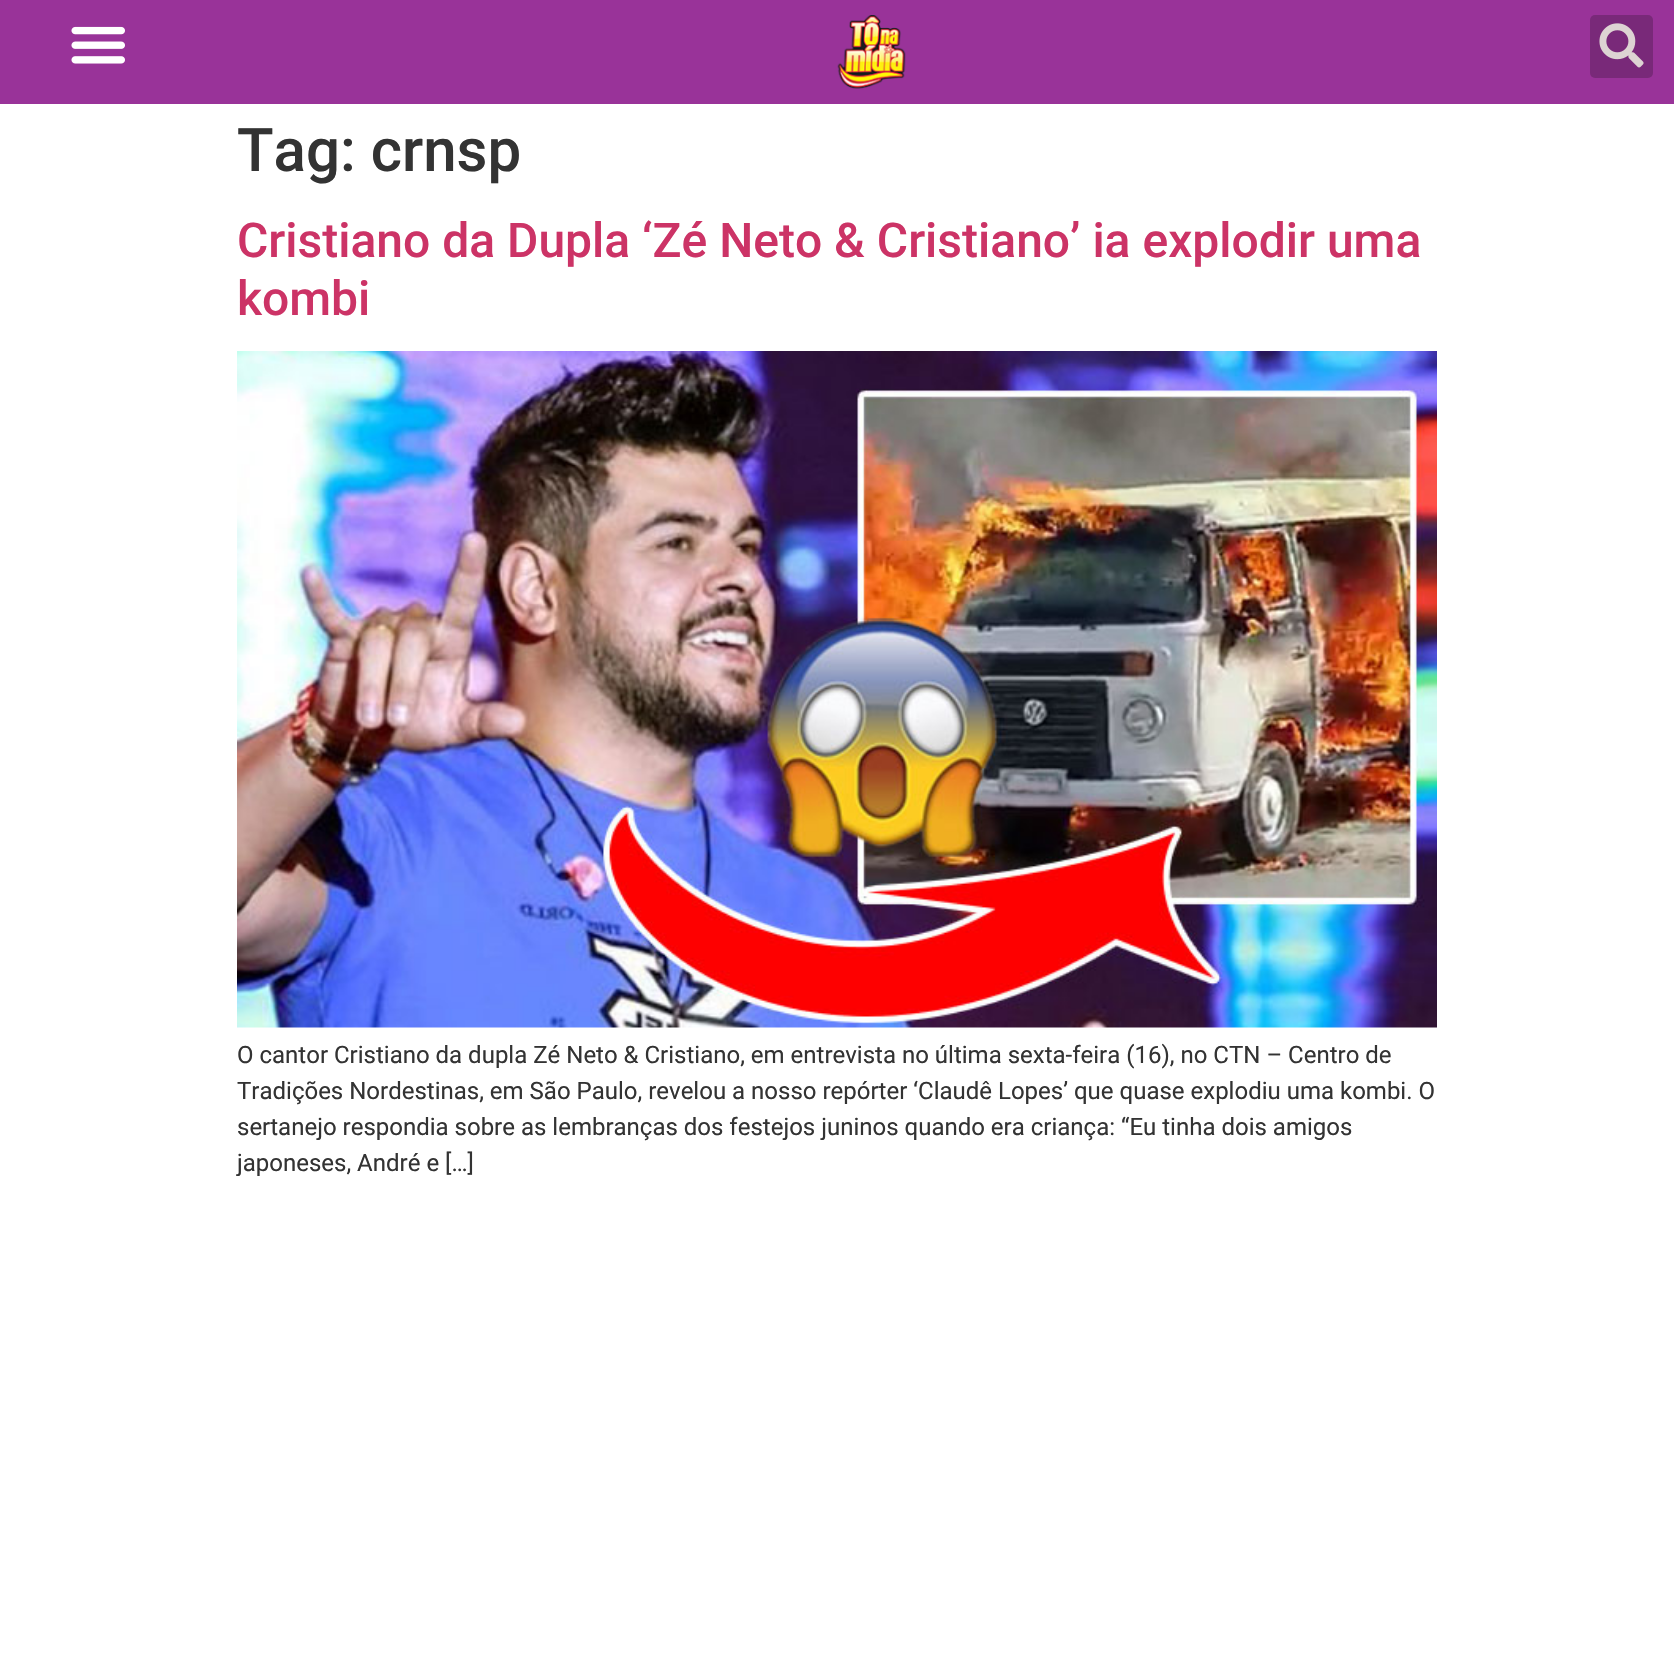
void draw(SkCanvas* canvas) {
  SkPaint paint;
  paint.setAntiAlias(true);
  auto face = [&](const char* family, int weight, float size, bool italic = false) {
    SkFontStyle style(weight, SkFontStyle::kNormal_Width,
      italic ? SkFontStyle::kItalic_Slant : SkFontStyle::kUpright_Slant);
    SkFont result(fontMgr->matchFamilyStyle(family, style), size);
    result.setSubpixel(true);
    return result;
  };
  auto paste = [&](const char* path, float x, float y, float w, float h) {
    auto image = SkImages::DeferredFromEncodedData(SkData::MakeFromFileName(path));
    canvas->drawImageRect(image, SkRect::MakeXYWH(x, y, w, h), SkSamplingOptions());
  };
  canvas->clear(0xffffffff);
  paint.setColor(0xff993399);
  canvas->drawRect(SkRect::MakeXYWH(0, 0, 1674, 104), paint);
  paste("img/1.png", 71, 26, 54, 38);
  paste("img/2.png", 837, 15, 69, 74);
  paint.setColor(0xff792979);
  canvas->drawRoundRect(SkRect::MakeXYWH(1590, 15, 63, 63), 5, 5, paint);
  paste("img/3.png", 1599, 23, 45, 45);
  paste("img/4.png", 237, 351, 1200, 677);
  auto f0 = face("Roboto", 500, 60);
  paint.setColor(0xff333333);
  canvas->drawString("Tag: crnsp", 237, 171, f0, paint);
  auto f1 = face("Roboto", 500, 48);
  paint.setColor(0xffcc3366);
  canvas->drawString("Cristiano da Dupla ‘Zé Neto & Cristiano’ ia explodir uma", 237, 257, f1, paint);
  canvas->drawString("kombi", 237, 315, f1, paint);
  auto f2 = face("Roboto", 400, 24);
  paint.setColor(0xff333333);
  {
    const struct { const char* s; float x, y; } items[] = {
      {"O cantor Cristiano da dupla Zé Neto & Cristiano, em entrevista no última sexta-feira (16), no CTN – Centro de", 237, 1063},
      {"Tradições Nordestinas, em São Paulo, revelou a nosso repórter ‘Claudê Lopes’ que quase explodiu uma kombi. O", 237, 1099},
      {"sertanejo respondia sobre as lembranças dos festejos juninos quando era criança: “Eu tinha dois amigos", 237, 1135},
      {"japoneses, André e […]", 237, 1171},
    };
    for (auto [s, x, y] : items) {
      canvas->drawString(s, x, y, f2, paint);
    }
  }
}
